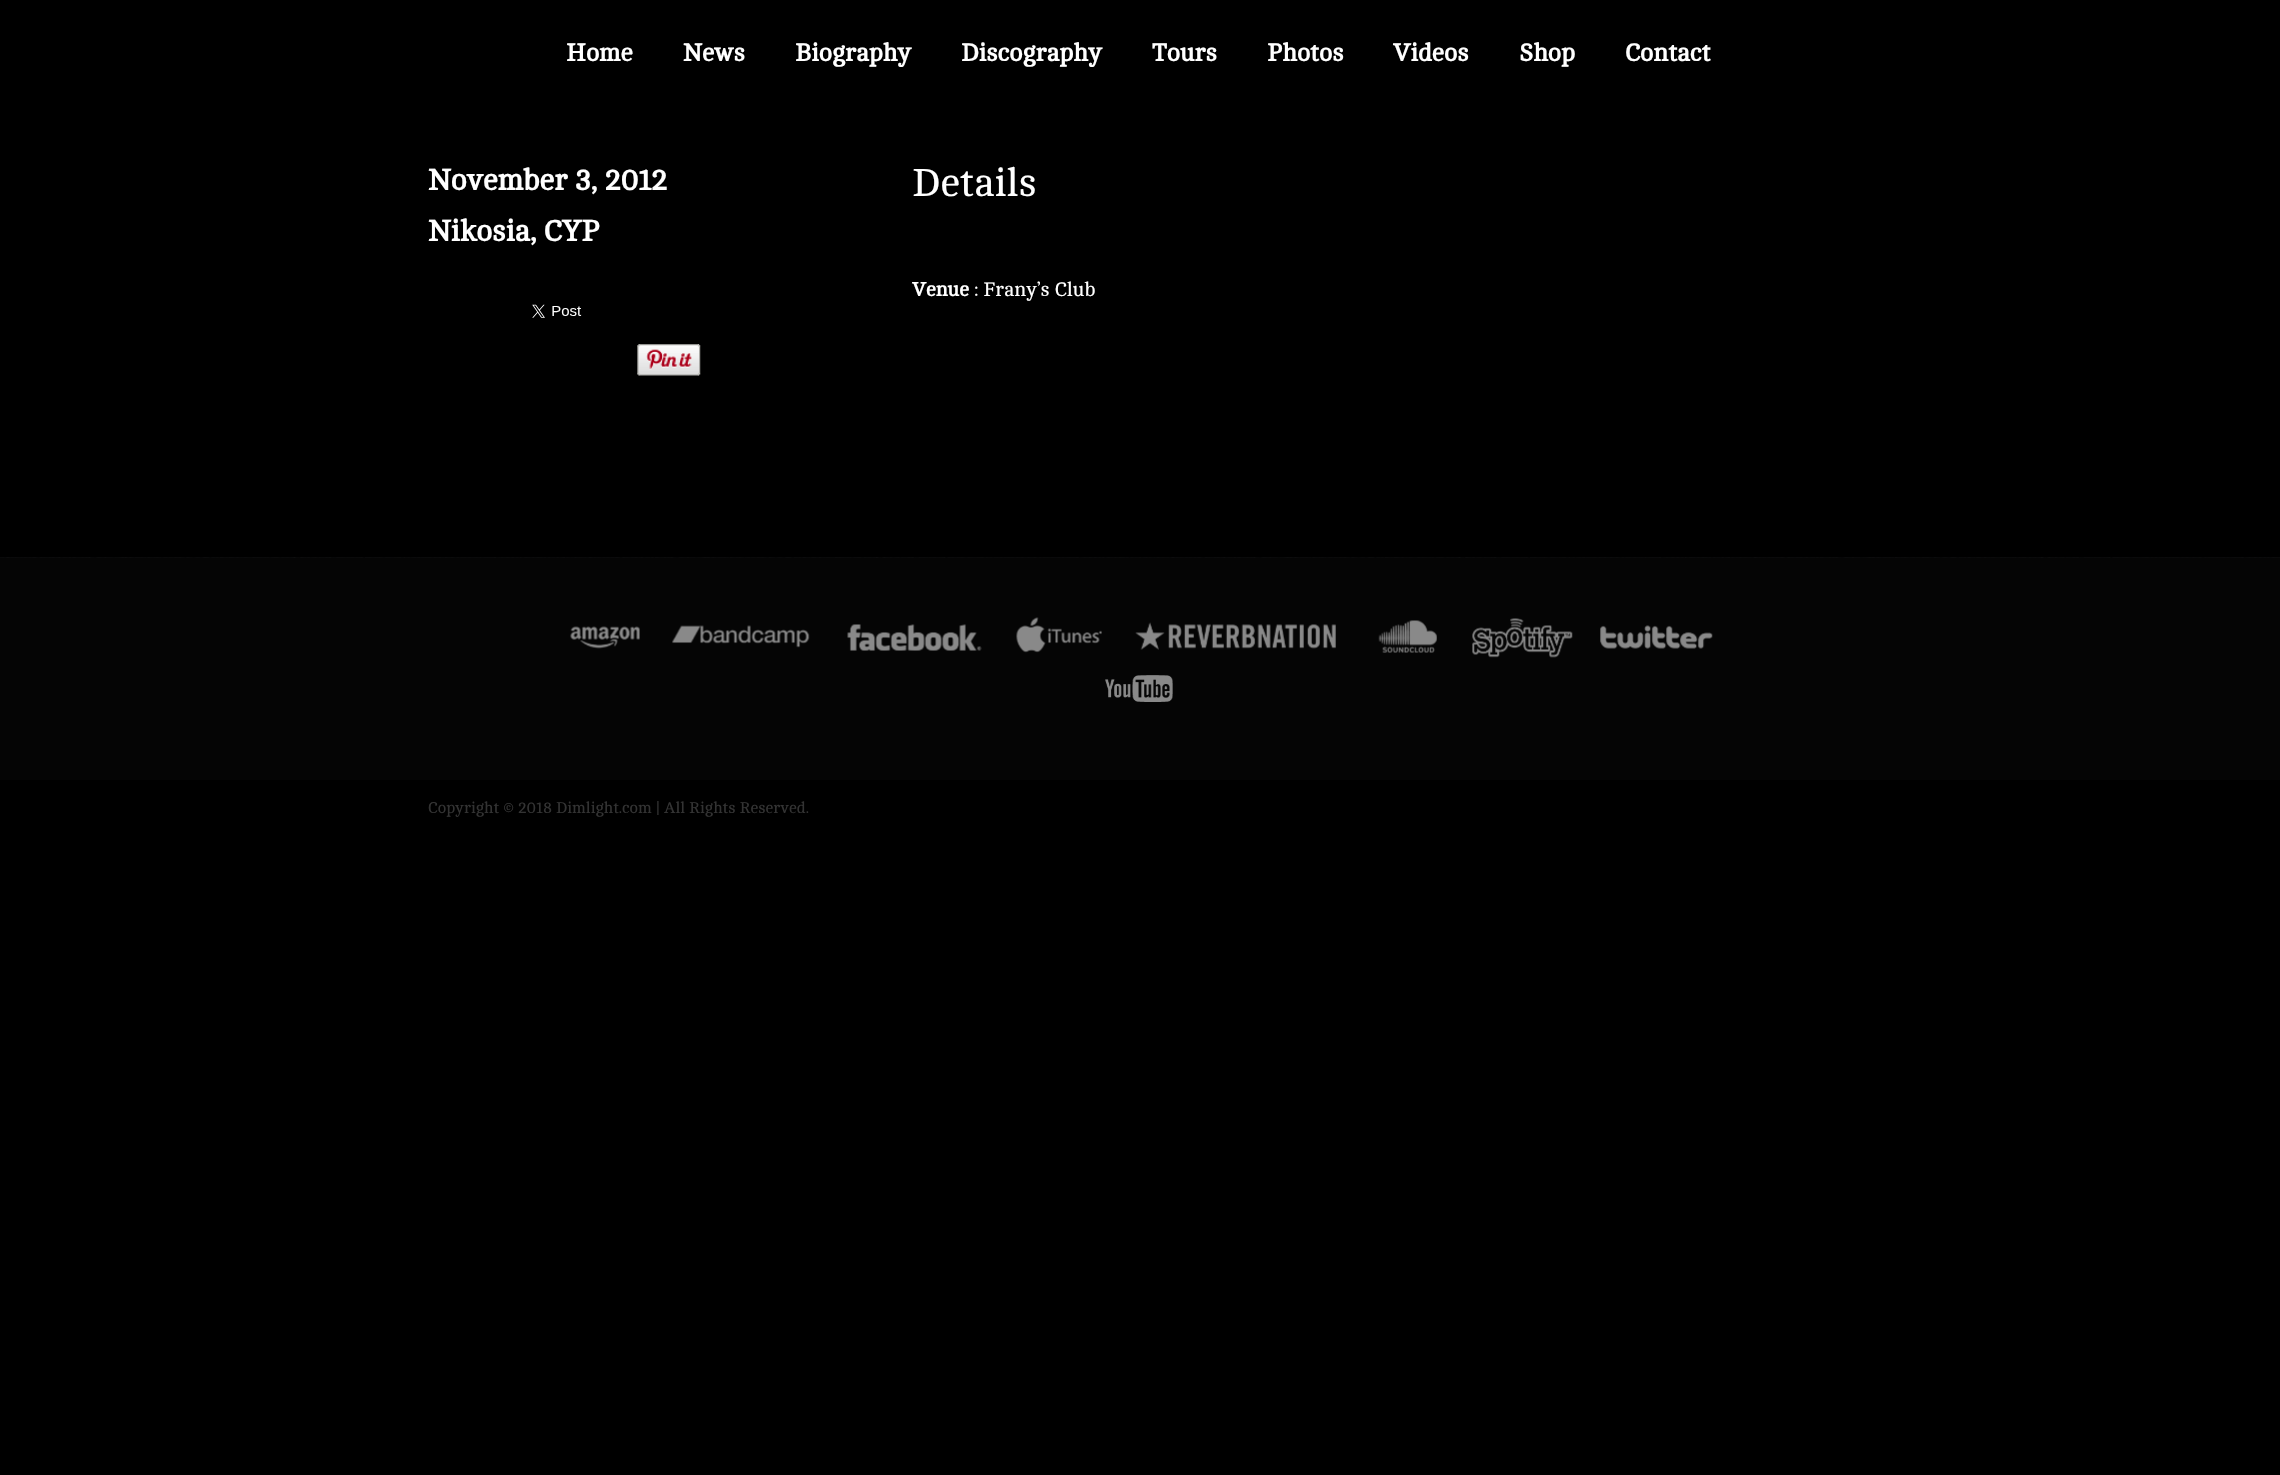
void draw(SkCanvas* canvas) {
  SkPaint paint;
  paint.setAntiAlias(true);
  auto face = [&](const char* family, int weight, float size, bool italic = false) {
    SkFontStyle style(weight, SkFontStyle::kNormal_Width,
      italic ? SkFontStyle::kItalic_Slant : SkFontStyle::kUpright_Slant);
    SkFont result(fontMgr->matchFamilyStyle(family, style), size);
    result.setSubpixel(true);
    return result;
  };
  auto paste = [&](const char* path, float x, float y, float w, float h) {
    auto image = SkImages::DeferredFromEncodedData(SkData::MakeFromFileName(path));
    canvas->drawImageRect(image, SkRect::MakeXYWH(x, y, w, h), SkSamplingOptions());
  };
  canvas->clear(0xff000000);
  paste("img/1.png", 532, 304, 50, 14);
  paste("img/2.png", 637, 344, 64, 32);
  paste("img/3.png", 0, 557, 2280, 1);
  paint.setColor(0xff050505);
  canvas->drawRect(SkRect::MakeXYWH(0, 558, 2280, 222), paint);
  paste("img/4.png", 570, 626, 70, 23);
  paste("img/5.png", 672, 625, 138, 23);
  paste("img/6.png", 847, 624, 135, 27);
  paste("img/7.png", 1016, 617, 86, 36);
  paste("img/8.png", 1135, 622, 201, 28);
  paste("img/9.png", 1378, 620, 59, 33);
  paste("img/10.png", 1472, 618, 101, 40);
  paste("img/11.png", 1600, 625, 113, 24);
  paste("img/12.png", 1105, 675, 68, 27);
  auto f0 = face("Cambo", 700, 25);
  paint.setColor(0xffffffff);
  {
    const struct { const char* s; float x, y; } items[] = {
      {"Home", 566, 61},
      {"News", 683, 61},
      {"Biography", 795, 61},
      {"Discography", 961, 61},
      {"Tours", 1152, 61},
      {"Photos", 1267, 61},
      {"Videos", 1393, 61},
      {"Shop", 1519, 61},
      {"Contact", 1625, 61},
    };
    for (auto [s, x, y] : items) {
      canvas->drawString(s, x, y, f0, paint);
    }
  }
  auto f1 = face("Cambo", 700, 30);
  canvas->drawString("November 3, 2012", 428, 190, f1, paint);
  canvas->drawString("Nikosia, CYP", 428, 241, f1, paint);
  auto f2 = face("Cambo", 400, 40);
  canvas->drawString("Details", 912, 196, f2, paint);
  auto f3 = face("Cambo", 700, 20);
  canvas->drawString("Venue", 912, 296, f3, paint);
  auto f4 = face("Cambo", 400, 20);
  canvas->drawString(": Frany’s Club", 974, 296, f4, paint);
  auto f5 = face("Cambo", 400, 16);
  paint.setColor(0xff333333);
  canvas->drawString("Copyright © 2018 Dimlight.com | All Rights Reserved.", 428, 813, f5, paint);
}
